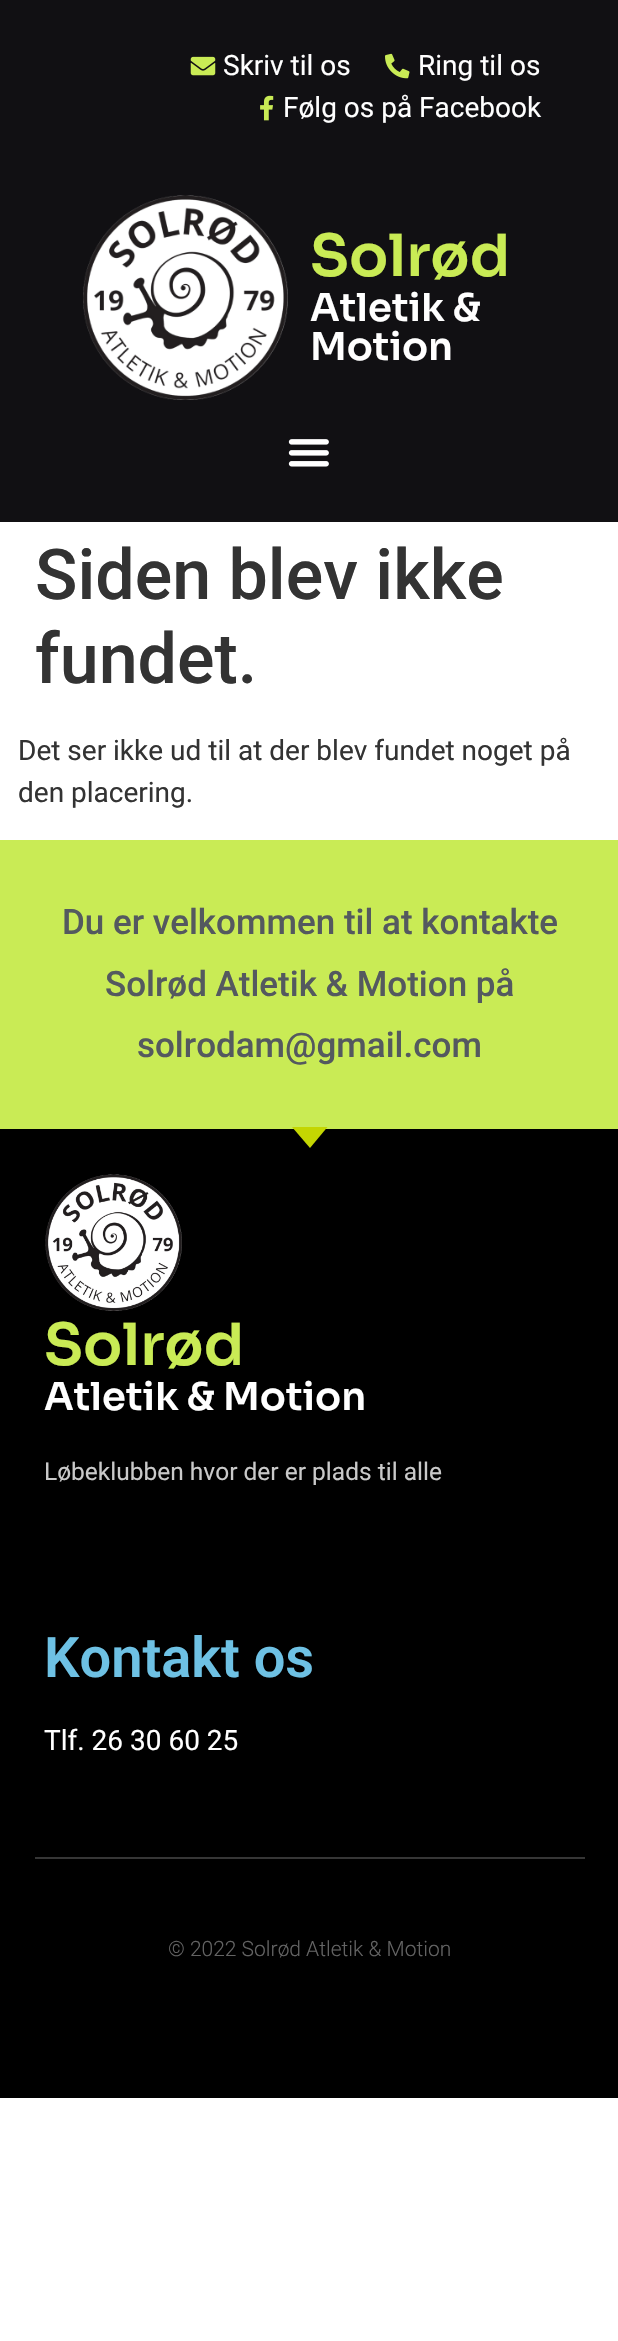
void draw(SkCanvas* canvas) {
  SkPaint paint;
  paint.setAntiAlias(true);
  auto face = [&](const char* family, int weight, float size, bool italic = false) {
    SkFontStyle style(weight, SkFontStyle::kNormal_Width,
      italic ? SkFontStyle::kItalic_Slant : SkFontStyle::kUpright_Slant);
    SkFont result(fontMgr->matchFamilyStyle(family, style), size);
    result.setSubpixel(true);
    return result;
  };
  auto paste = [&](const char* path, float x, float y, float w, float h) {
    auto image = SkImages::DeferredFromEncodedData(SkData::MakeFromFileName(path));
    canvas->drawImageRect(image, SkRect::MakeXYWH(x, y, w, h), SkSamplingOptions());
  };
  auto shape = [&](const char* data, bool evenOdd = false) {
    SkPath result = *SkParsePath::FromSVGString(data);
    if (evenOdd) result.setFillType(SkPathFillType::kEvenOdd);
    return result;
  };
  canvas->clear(0xffffffff);
  paint.setColor(0xff111013);
  canvas->drawRect(SkRect::MakeXYWH(0, 0, 618, 522), paint);
  paste("img/1.png", 190, 56, 26, 20);
  paste("img/2.png", 385, 53, 25, 26);
  paste("img/3.png", 260, 95, 14, 26);
  paste("img/4.png", 83, 195, 205, 205);
  paste("img/5.png", 288, 439, 41, 28);
  paint.setColor(0xffc9eb55);
  canvas->drawRect(SkRect::MakeXYWH(0, 840, 618, 289), paint);
  paint.setColor(0xff000000);
  canvas->drawRect(SkRect::MakeXYWH(0, 1129, 618, 969), paint);
  paint.setColor(0xffc4d602);
  canvas->drawPath(shape("M310 1148L292 1127H327.5Z"), paint);
  paste("img/6.png", 45, 1174, 137, 137);
  paint.setColor(0xff363636);
  canvas->drawRect(SkRect::MakeXYWH(35, 1857, 550, 2), paint);
  auto f0 = face("Roboto", 400, 28);
  paint.setColor(0xffffffff);
  {
    const struct { const char* s; float x, y; } items[] = {
      {"Skriv til os", 223, 75},
      {"Ring til os", 418, 75},
      {"Følg os på Facebook", 283, 117},
    };
    for (auto [s, x, y] : items) {
      canvas->drawString(s, x, y, f0, paint);
    }
  }
  auto f1 = face("Sora", 600, 58);
  paint.setColor(0xffc9eb55);
  canvas->drawString("Solrød", 310, 276, f1, paint);
  auto f2 = face("Sora", 600, 38.5f);
  paint.setColor(0xffffffff);
  canvas->drawString("Atletik &", 310, 321, f2, paint);
  canvas->drawString("Motion", 310, 360, f2, paint);
  auto f3 = face("Roboto", 500, 70);
  paint.setColor(0xff333333);
  canvas->drawString("Siden blev ikke", 35, 599, f3, paint);
  canvas->drawString("fundet.", 35, 683, f3, paint);
  canvas->drawString("Det ser ikke ud til at der blev fundet noget på", 18, 760, f0, paint);
  canvas->drawString("den placering.", 18, 802, f0, paint);
  auto f4 = face("Roboto", 500, 35);
  paint.setColor(0xff54595f);
  {
    const struct { const char* s; float x, y; } items[] = {
      {"Du er velkommen til at kontakte", 62, 934},
      {"Solrød Atletik & Motion på", 105, 996},
      {"solrodam@gmail.com", 137, 1057},
    };
    for (auto [s, x, y] : items) {
      canvas->drawString(s, x, y, f4, paint);
    }
  }
  paint.setColor(0xffc9eb55);
  canvas->drawString("Solrød", 44, 1365, f1, paint);
  paint.setColor(0xffffffff);
  canvas->drawString("Atletik & Motion", 44, 1410, f2, paint);
  auto f5 = face("Roboto", 400, 24.5f);
  paint.setColor(0xffc9c9c9);
  canvas->drawString("Løbeklubben hvor der er plads til alle", 44, 1480, f5, paint);
  auto f6 = face("Roboto", 600, 56);
  paint.setColor(0xff6ec1e4);
  canvas->drawString("Kontakt os", 44, 1677, f6, paint);
  paint.setColor(0xffffffff);
  canvas->drawString("Tlf. 26 30 60 25", 44, 1750, f0, paint);
  auto f7 = face("Roboto", 300, 21);
  paint.setColor(0xff636363);
  canvas->drawString("© 2022 Solrød Atletik & Motion", 168, 1956, f7, paint);
}
